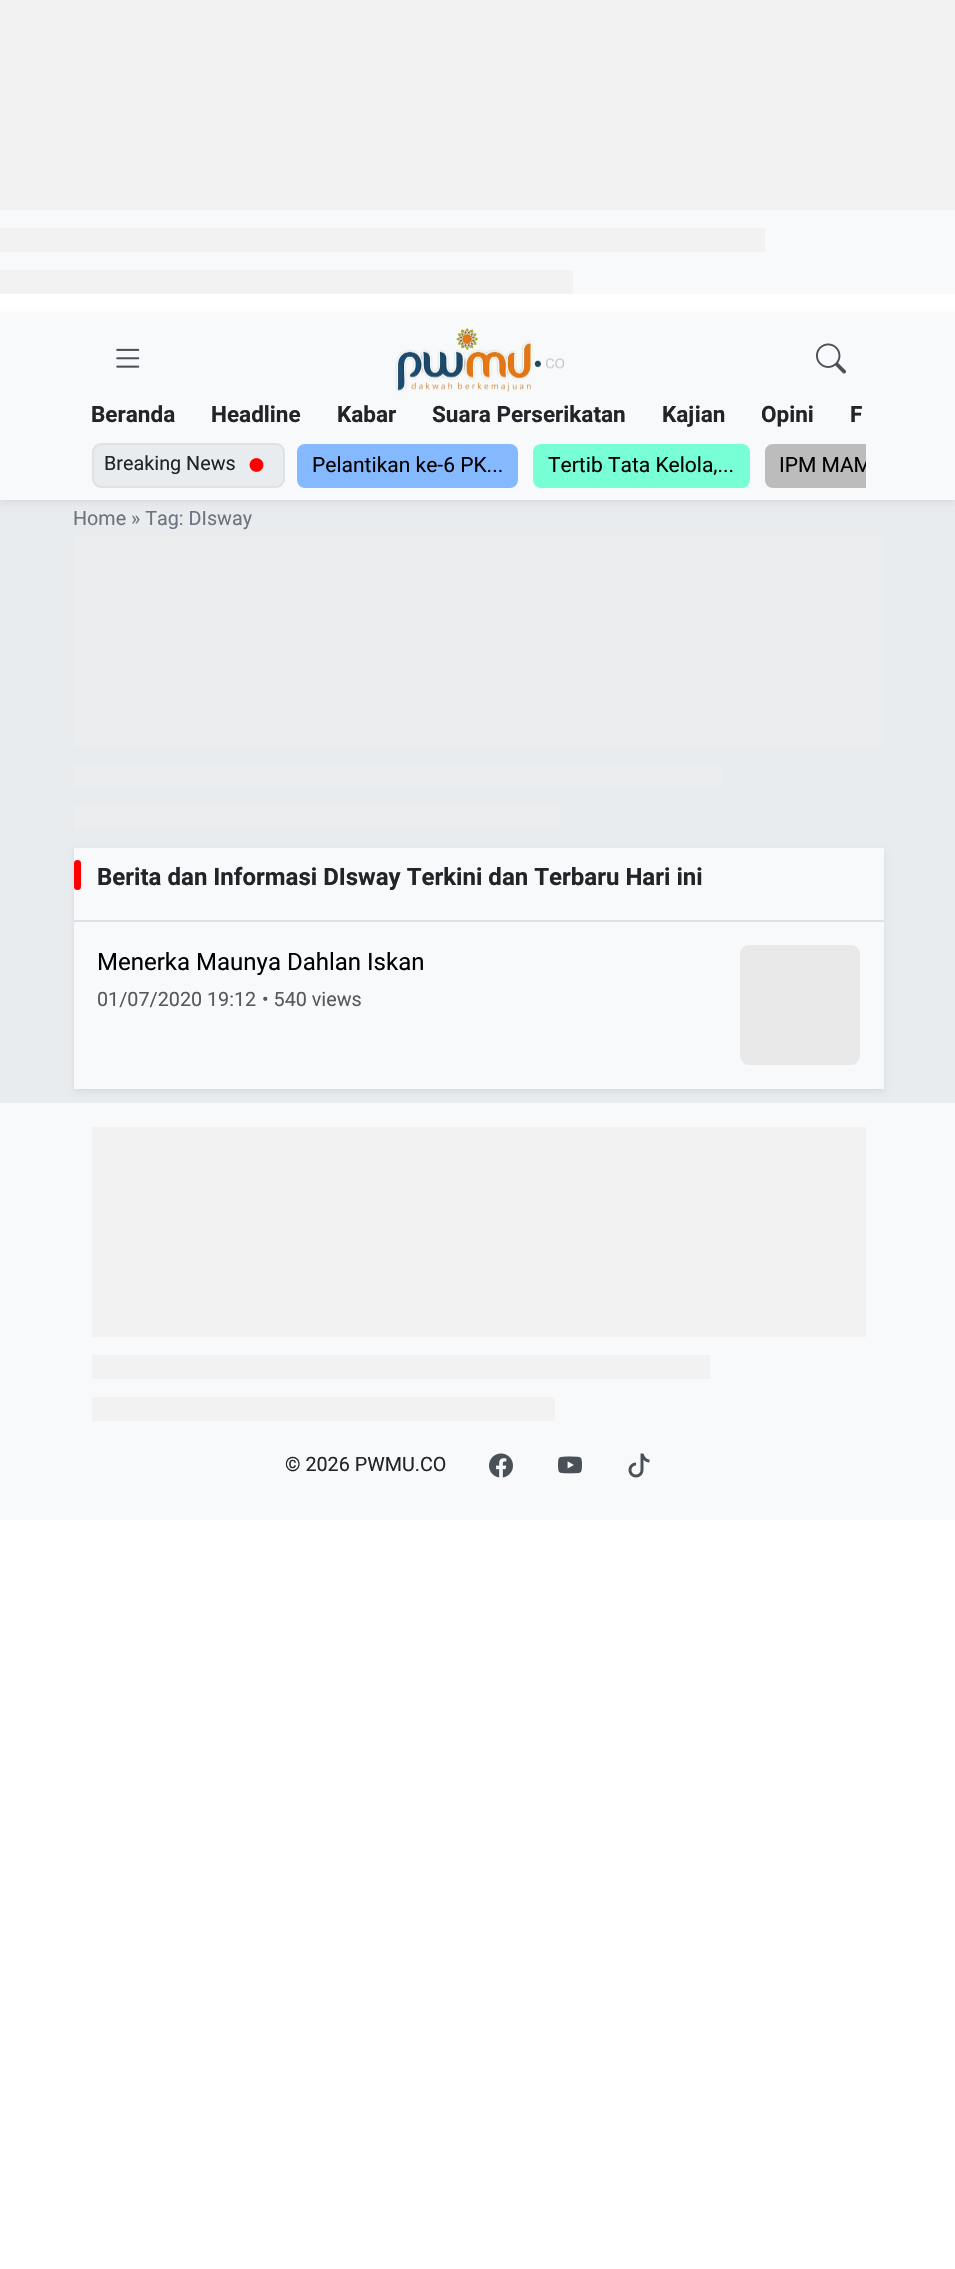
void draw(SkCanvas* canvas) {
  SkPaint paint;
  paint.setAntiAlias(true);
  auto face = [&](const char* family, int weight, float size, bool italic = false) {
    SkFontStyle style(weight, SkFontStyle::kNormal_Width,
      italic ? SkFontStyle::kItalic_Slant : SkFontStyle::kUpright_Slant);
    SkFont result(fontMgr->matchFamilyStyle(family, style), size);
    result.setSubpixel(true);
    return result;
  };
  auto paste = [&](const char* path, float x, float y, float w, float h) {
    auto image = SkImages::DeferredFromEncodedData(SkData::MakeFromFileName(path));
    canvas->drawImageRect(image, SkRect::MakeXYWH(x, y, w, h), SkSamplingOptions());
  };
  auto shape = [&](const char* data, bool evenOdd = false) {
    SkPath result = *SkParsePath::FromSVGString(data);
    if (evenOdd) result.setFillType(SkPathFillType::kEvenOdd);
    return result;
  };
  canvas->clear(0xffffffff);
  paint.setColor(0xfff8f9fa);
  canvas->drawRect(SkRect::MakeXYWH(0, 210, 955, 84), paint);
  {
    const SkColor colors[] = {0xfff2f2f2, 0xfff6f6f7, 0xfff1f1f1};
    const float stops[] = {0.25f, 0.37f, 0.63f};
    const SkPoint ends[] = {{0, 105}, {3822, 105}};
    paint.setShader(SkGradientShader::MakeLinear(ends, colors, stops, 3, SkTileMode::kClamp));
    paint.setAlpha(255);
  }
  canvas->drawRect(SkRect::MakeXYWH(0, 0, 955, 210), paint);
  {
    const SkColor colors[] = {0xfff2f2f2, 0xfff6f7f7, 0xfff1f1f1};
    const float stops[] = {0.25f, 0.37f, 0.63f};
    const SkPoint ends[] = {{0, 240}, {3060, 240}};
    paint.setShader(SkGradientShader::MakeLinear(ends, colors, stops, 3, SkTileMode::kClamp));
    paint.setAlpha(255);
  }
  canvas->drawRect(SkRect::MakeXYWH(0, 228, 765, 24), paint);
  {
    const SkColor colors[] = {0xfff2f2f2, 0xfff6f7f7, 0xfff1f1f1};
    const float stops[] = {0.25f, 0.37f, 0.63f};
    const SkPoint ends[] = {{0, 282}, {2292, 282}};
    paint.setShader(SkGradientShader::MakeLinear(ends, colors, stops, 3, SkTileMode::kClamp));
    paint.setAlpha(255);
  }
  canvas->drawRect(SkRect::MakeXYWH(0, 270, 573, 24), paint);
  paint.setShader(nullptr);
  paint.setColor(0xffe9ecef);
  canvas->drawRect(SkRect::MakeXYWH(0, 500, 955, 603), paint);
  paint.setColor(0x12000000);
  paint.setMaskFilter(SkMaskFilter::MakeBlur(kNormal_SkBlurStyle, 3));
  canvas->drawRect(SkRect::MakeXYWH(0, 315, 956, 188), paint);
  paint.setMaskFilter(nullptr);
  paint.setColor(0xfff8f9fa);
  canvas->drawRect(SkRect::MakeXYWH(0, 312, 955, 188), paint);
  paste("img/1.png", 116, 348, 24, 20);
  paste("img/2.png", 395, 328, 170, 65);
  paste("img/3.png", 816, 343, 30, 31);
  paint.setColor(0xffe9ecef);
  canvas->drawRoundRect(SkRect::MakeXYWH(93, 444, 191, 43), 8, 8, paint);
  paint.setStroke(true);
  paint.setStrokeWidth(2);
  paint.setColor(0xffdee2e6);
  canvas->drawRoundRect(SkRect::MakeXYWH(93, 444, 191, 43), 8, 8, paint);
  paste("img/4.png", 249, 458, 15, 14);
  paint.setStroke(false);
  paint.setColor(0xff84b9ff);
  canvas->drawRoundRect(SkRect::MakeXYWH(297, 444, 221, 44), 8, 8, paint);
  paint.setColor(0xff78ffd6);
  canvas->drawRoundRect(SkRect::MakeXYWH(533, 444, 217, 44), 8, 8, paint);
  paint.setColor(0xffbcbcbc);
  canvas->drawPath(shape("M773 444H866V488H773C768.5 488 765 484.5 765 480V452C765 447.5 768.5 444 773 444Z"), paint);
  {
    const SkColor colors[] = {0xffecedef, 0xffeff1f3, 0xffecedee};
    const float stops[] = {0.25f, 0.37f, 0.63f};
    const SkPoint ends[] = {{74, 641}, {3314, 640}};
    paint.setShader(SkGradientShader::MakeLinear(ends, colors, stops, 3, SkTileMode::kClamp));
    paint.setAlpha(255);
  }
  canvas->drawRect(SkRect::MakeXYWH(74, 536, 810, 210), paint);
  {
    const SkColor colors[] = {0xffecedee, 0xfff0f1f2, 0xffededee};
    const float stops[] = {0.25f, 0.37f, 0.63f};
    const SkPoint ends[] = {{74, 776}, {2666, 776}};
    paint.setShader(SkGradientShader::MakeLinear(ends, colors, stops, 3, SkTileMode::kClamp));
    paint.setAlpha(255);
  }
  canvas->drawRect(SkRect::MakeXYWH(74, 764, 648, 24), paint);
  {
    const SkColor colors[] = {0xffecedee, 0xfff0f1f2, 0xffededee};
    const float stops[] = {0.25f, 0.37f, 0.63f};
    const SkPoint ends[] = {{74, 818}, {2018, 818}};
    paint.setShader(SkGradientShader::MakeLinear(ends, colors, stops, 3, SkTileMode::kClamp));
    paint.setAlpha(255);
  }
  canvas->drawRect(SkRect::MakeXYWH(74, 806, 486, 24), paint);
  paint.setShader(nullptr);
  paint.setColor(0x12000000);
  paint.setMaskFilter(SkMaskFilter::MakeBlur(kNormal_SkBlurStyle, 3));
  canvas->drawRect(SkRect::MakeXYWH(74, 851, 810, 241), paint);
  paint.setMaskFilter(nullptr);
  paint.setColor(0xfff8f9fa);
  canvas->drawRect(SkRect::MakeXYWH(74, 848, 810, 241), paint);
  paint.setColor(0xffdee2e6);
  canvas->drawRect(SkRect::MakeXYWH(74, 920, 810, 2), paint);
  paint.setColor(0xffff0000);
  canvas->drawRoundRect(SkRect::MakeXYWH(74, 860, 7, 30), 3.5f, 3.5f, paint);
  paint.setColor(0xffe9e9e9);
  canvas->drawRoundRect(SkRect::MakeXYWH(740, 945, 120, 120), 9, 9, paint);
  paint.setColor(0xfff8f9fa);
  canvas->drawRect(SkRect::MakeXYWH(0, 1103, 955, 417), paint);
  {
    const SkColor colors[] = {0xfff2f2f2, 0xfff6f7f7, 0xfff1f1f1};
    const float stops[] = {0.25f, 0.37f, 0.63f};
    const SkPoint ends[] = {{92, 1232}, {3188, 1231}};
    paint.setShader(SkGradientShader::MakeLinear(ends, colors, stops, 3, SkTileMode::kClamp));
    paint.setAlpha(255);
  }
  canvas->drawRect(SkRect::MakeXYWH(92, 1127, 774, 210), paint);
  {
    const SkColor colors[] = {0xfff2f2f2, 0xfff6f7f7, 0xfff1f1f1};
    const float stops[] = {0.25f, 0.37f, 0.63f};
    const SkPoint ends[] = {{92, 1367}, {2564, 1367}};
    paint.setShader(SkGradientShader::MakeLinear(ends, colors, stops, 3, SkTileMode::kClamp));
    paint.setAlpha(255);
  }
  canvas->drawRect(SkRect::MakeXYWH(92, 1355, 618, 24), paint);
  {
    const SkColor colors[] = {0xfff2f2f2, 0xfff6f7f7, 0xfff1f1f1};
    const float stops[] = {0.25f, 0.37f, 0.63f};
    const SkPoint ends[] = {{92, 1409}, {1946, 1409}};
    paint.setShader(SkGradientShader::MakeLinear(ends, colors, stops, 3, SkTileMode::kClamp));
    paint.setAlpha(255);
  }
  canvas->drawRect(SkRect::MakeXYWH(92, 1397, 463, 24), paint);
  paste("img/5.png", 489, 1453, 24, 25);
  paste("img/6.png", 558, 1456, 24, 18);
  paste("img/7.png", 628, 1453, 22, 25);
  auto f0 = face("Heebo", 700, 22.5f);
  paint.setShader(nullptr);
  paint.setColor(0xff212529);
  {
    const struct { const char* s; float x, y; } items[] = {
      {"Beranda", 91, 422},
      {"Headline", 211, 422},
      {"Kabar", 337, 422},
      {"Suara Perserikatan", 432, 422},
      {"Kajian", 662, 422},
      {"Opini", 761, 422},
      {"F", 850, 422},
    };
    for (auto [s, x, y] : items) {
      canvas->drawString(s, x, y, f0, paint);
    }
  }
  auto f1 = face("Heebo", 400, 19.75f);
  canvas->drawString("Breaking News", 104, 470, f1, paint);
  auto f2 = face("Heebo", 400, 21);
  paint.setColor(0xff000000);
  canvas->drawString("Pelantikan ke-6 PK...", 312, 472, f2, paint);
  canvas->drawString("Tertib Tata Kelola,...", 548, 472, f2, paint);
  canvas->save();
  canvas->clipRect(SkRect::MakeXYWH(285, 444, 581, 44));
  canvas->drawString("IPM MAM", 779, 472, f2, paint);
  canvas->restore();
  paint.setColor(0xff6c757d);
  canvas->drawString("Home » Tag: DIsway", 73, 525, f1, paint);
  auto f3 = face("Heebo", 700, 24);
  paint.setColor(0xff212529);
  canvas->drawString("Berita dan Informasi DIsway Terkini dan Terbaru Hari ini", 97, 885, f3, paint);
  auto f4 = face("Heebo", 400, 24);
  paint.setColor(0xff000000);
  canvas->drawString("Menerka Maunya Dahlan Iskan", 97, 970, f4, paint);
  paint.setColor(0xff575a5d);
  {
    const struct { const char* s; float x, y; } items[] = {
      {"01/07/2020", 97, 1006},
      {"19:12", 207, 1006},
      {"• 540 views", 262, 1006},
    };
    for (auto [s, x, y] : items) {
      canvas->drawString(s, x, y, f1, paint);
    }
  }
  paint.setColor(0xff212529);
  canvas->drawString("© 2026 PWMU.CO", 285, 1471, f1, paint);
}
